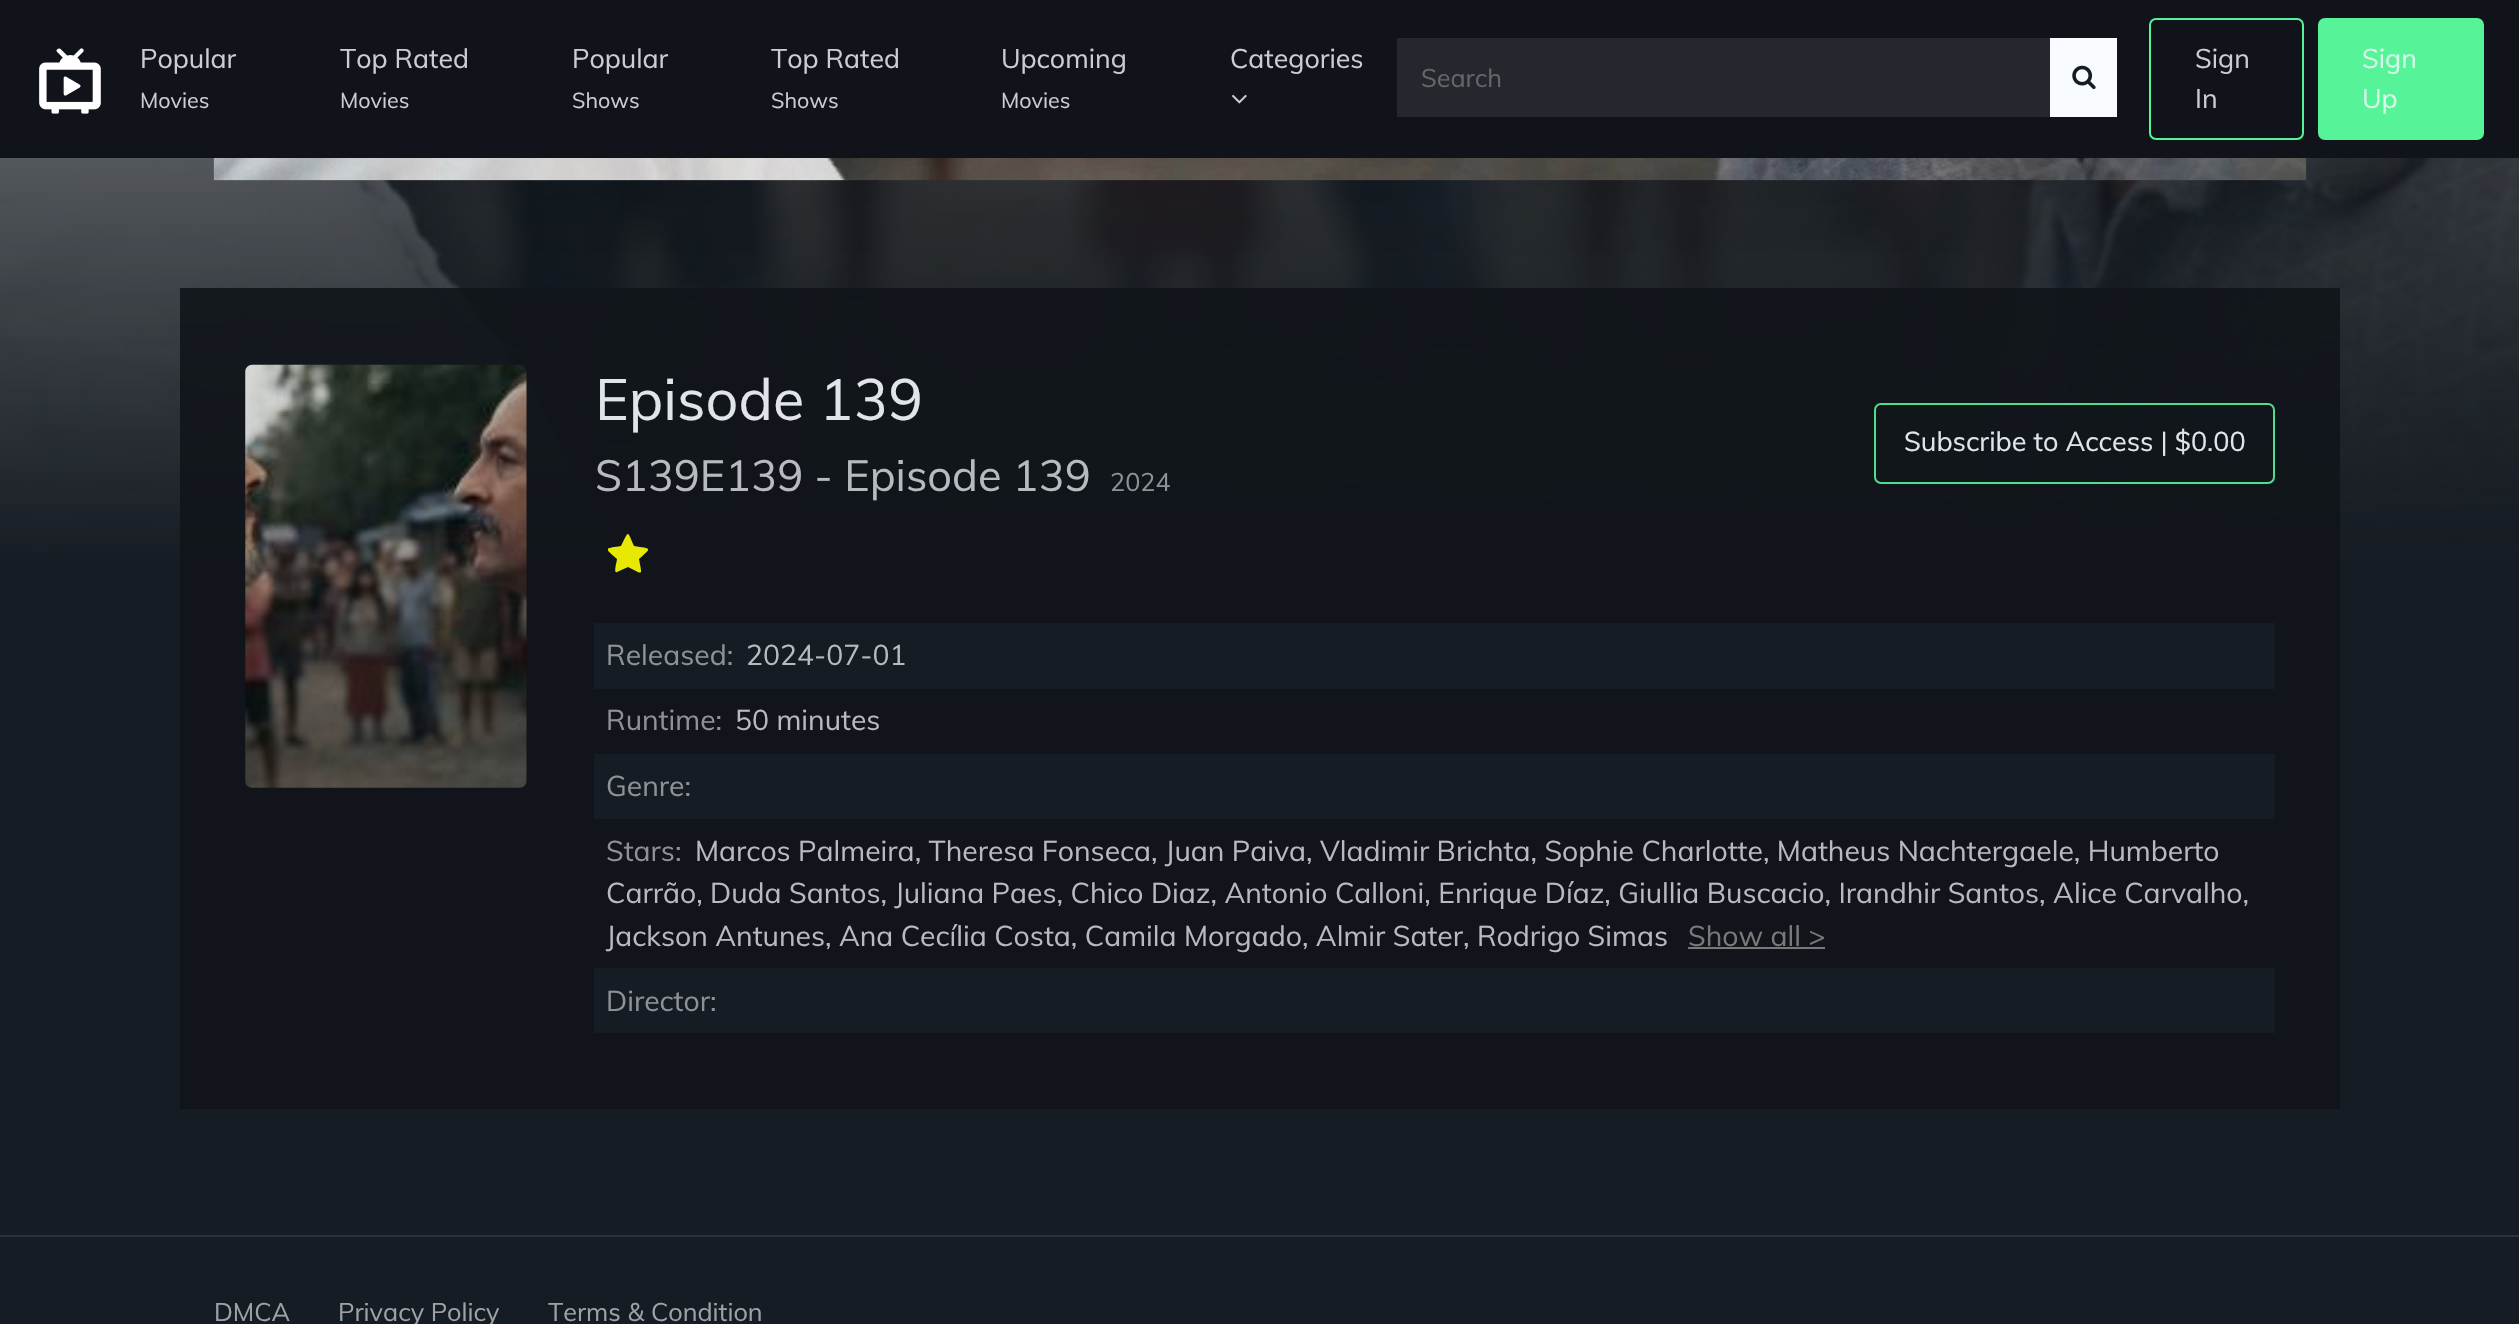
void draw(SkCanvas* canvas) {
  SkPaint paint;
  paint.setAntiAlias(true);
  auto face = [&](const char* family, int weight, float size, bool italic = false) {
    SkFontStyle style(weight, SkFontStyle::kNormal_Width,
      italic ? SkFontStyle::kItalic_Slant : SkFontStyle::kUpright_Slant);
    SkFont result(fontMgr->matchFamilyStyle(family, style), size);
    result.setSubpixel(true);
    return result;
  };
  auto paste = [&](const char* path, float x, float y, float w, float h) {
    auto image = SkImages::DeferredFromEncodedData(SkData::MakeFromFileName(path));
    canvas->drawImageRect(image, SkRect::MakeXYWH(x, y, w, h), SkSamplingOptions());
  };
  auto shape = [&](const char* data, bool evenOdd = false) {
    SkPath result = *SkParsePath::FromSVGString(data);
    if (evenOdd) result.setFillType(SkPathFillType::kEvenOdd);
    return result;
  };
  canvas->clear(0xff161c23);
  paint.setColor(0xff10141a);
  canvas->drawRect(SkRect::MakeXYWH(0, 0, 2519, 158), paint);
  paste("img/1.png", 39, 48, 62, 66);
  paste("img/2.png", 1232, 94, 15, 10);
  paint.setColor(0xff24282e);
  canvas->drawRect(SkRect::MakeXYWH(1397, 38, 653, 79), paint);
  paint.setColor(0xfff8fbff);
  canvas->drawRect(SkRect::MakeXYWH(2050, 38, 67, 79), paint);
  paste("img/3.png", 2072, 65, 24, 25);
  paint.setStroke(true);
  paint.setStrokeWidth(2);
  paint.setColor(0xff57f398);
  canvas->drawRoundRect(SkRect::MakeXYWH(2150, 19, 153, 120), 6, 6, paint);
  paint.setStroke(false);
  canvas->drawRoundRect(SkRect::MakeXYWH(2319, 19, 164, 120), 6, 6, paint);
  paint.setStroke(true);
  canvas->drawRoundRect(SkRect::MakeXYWH(2319, 19, 164, 120), 6, 6, paint);
  paste("img/4.png", 0, 158, 2519, 407);
  paste("img/5.png", 213, 158, 2094, 23);
  paste("img/6.png", 213, 158, 2094, 23);
  paint.setStroke(false);
  paint.setColor(0xe610141a);
  canvas->drawRect(SkRect::MakeXYWH(180, 288, 2160, 821), paint);
  paste("img/7.png", 245, 364, 282, 424);
  paint.setStroke(true);
  paint.setColor(0xff50dd8c);
  canvas->drawRoundRect(SkRect::MakeXYWH(1875, 404, 399, 79), 6, 6, paint);
  canvas->save();
  canvas->clipRect(SkRect::MakeXYWH(608, 533, 40, 41));
  paint.setStroke(false);
  paint.setColor(0xffe7e803);
  canvas->drawPath(shape("M617 572C613 574 617 561 617 559C604 547 603 549 621 546C629 530 627 530 634 546C652 549 652 547 639 559C642 576 644 575 628 567Z"), paint);
  canvas->restore();
  {
    const struct { float x, y, w, h; SkColor color; } items[] = {
      {594, 623, 1681, 66, 0xff161c23},
      {594, 754, 1681, 65, 0xff161c23},
      {1688, 947, 137, 2, 0xff787979},
      {594, 968, 1681, 65, 0xff161c23},
      {0, 1235, 2519, 2, 0xff2d3239},
    };
    for (auto [x, y, w, h, color] : items) {
      paint.setColor(color);
      canvas->drawRect(SkRect::MakeXYWH(x, y, w, h), paint);
    }
  }
  auto f0 = face("Muli", 400, 26.75f);
  paint.setColor(0xffcacdd1);
  canvas->drawString("Popular", 140, 68, f0, paint);
  auto f1 = face("Muli", 400, 21.5f);
  canvas->drawString("Movies", 140, 108, f1, paint);
  canvas->drawString("Top Rated", 340, 68, f0, paint);
  canvas->drawString("Movies", 340, 108, f1, paint);
  canvas->drawString("Popular", 572, 68, f0, paint);
  canvas->drawString("Shows", 572, 108, f1, paint);
  canvas->drawString("Top Rated", 771, 68, f0, paint);
  canvas->drawString("Shows", 771, 108, f1, paint);
  canvas->drawString("Upcoming", 1001, 68, f0, paint);
  canvas->drawString("Movies", 1001, 108, f1, paint);
  canvas->drawString("Categories", 1230, 68, f0, paint);
  auto f2 = face("Muli", 400, 25.25f);
  paint.setColor(0xff666667);
  canvas->drawString("Search", 1421, 87, f2, paint);
  paint.setColor(0xffcacdd1);
  canvas->drawString("Sign", 2195, 68, f0, paint);
  canvas->drawString("In", 2195, 108, f0, paint);
  paint.setColor(0xffd8f9ea);
  canvas->drawString("Sign", 2362, 68, f0, paint);
  canvas->drawString("Up", 2362, 108, f0, paint);
  auto f3 = face("Muli", 400, 57.5f);
  paint.setColor(0xffe1e4e8);
  canvas->drawString("Episode 139", 595, 420, f3, paint);
  auto f4 = face("Muli", 400, 43.25f);
  paint.setColor(0xffb7bbbf);
  canvas->drawString("S139E139 - Episode 139", 595, 491, f4, paint);
  paint.setColor(0xff8e9297);
  canvas->drawString("2024", 1110, 491, f2, paint);
  auto f5 = face("Muli", 400, 27);
  paint.setColor(0xffe1e4e8);
  canvas->drawString("Subscribe to Access | $0.00", 1904, 451, f5, paint);
  auto f6 = face("Muli", 400, 28.35f);
  paint.setColor(0xff8e9297);
  canvas->drawString("Released:", 606, 665, f6, paint);
  paint.setColor(0xffb7bbbf);
  canvas->drawString("2024-07-01", 746, 665, f6, paint);
  paint.setColor(0xff8e9297);
  canvas->drawString("Runtime:", 606, 730, f6, paint);
  paint.setColor(0xffb7bbbf);
  canvas->drawString("50 minutes", 735, 730, f6, paint);
  paint.setColor(0xff8e9297);
  canvas->drawString("Genre:", 606, 796, f6, paint);
  canvas->drawString("Stars:", 606, 861, f6, paint);
  paint.setColor(0xffb7bbbf);
  {
    const struct { const char* s; float x, y; } items[] = {
      {"Marcos Palmeira, Theresa Fonseca, Juan Paiva, Vladimir Brichta, Sophie Charlotte, Matheus Nachtergaele, Humberto", 695, 861},
      {"Carrão, Duda Santos, Juliana Paes, Chico Diaz, Antonio Calloni, Enrique Díaz, Giullia Buscacio, Irandhir Santos, Alice Carvalho,", 606, 903},
      {"Jackson Antunes, Ana Cecília Costa, Camila Morgado, Almir Sater, Rodrigo Simas", 606, 946},
    };
    for (auto [s, x, y] : items) {
      canvas->drawString(s, x, y, f6, paint);
    }
  }
  paint.setColor(0xff787979);
  canvas->drawString("Show all >", 1688, 946, f6, paint);
  paint.setColor(0xff8e9297);
  canvas->drawString("Director:", 606, 1011, f6, paint);
  paint.setColor(0xff9ea2a7);
  {
    const struct { const char* s; float x, y; } items[] = {
      {"DMCA", 214, 1321},
      {"Privacy Policy", 338, 1321},
      {"Terms & Condition", 548, 1321},
    };
    for (auto [s, x, y] : items) {
      canvas->drawString(s, x, y, f2, paint);
    }
  }
}
